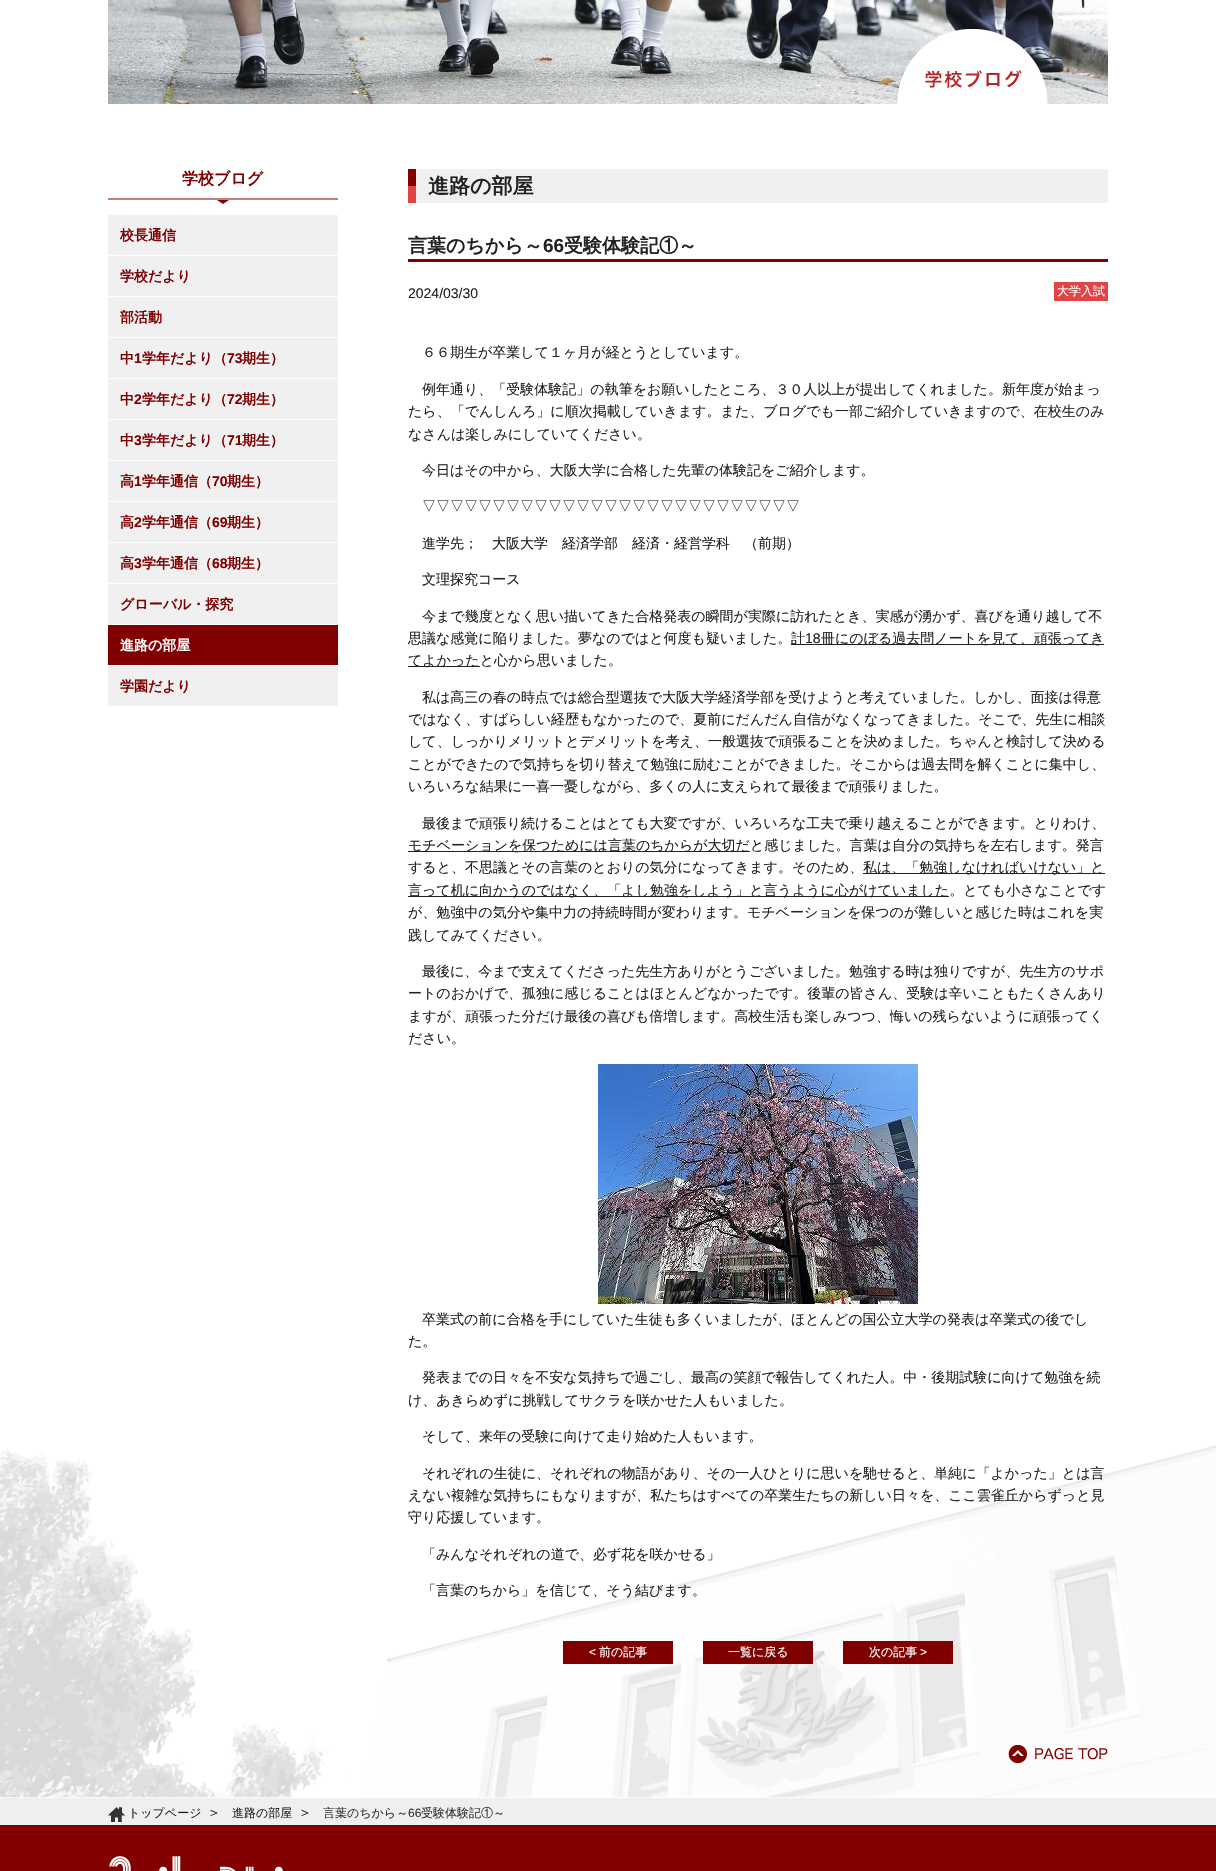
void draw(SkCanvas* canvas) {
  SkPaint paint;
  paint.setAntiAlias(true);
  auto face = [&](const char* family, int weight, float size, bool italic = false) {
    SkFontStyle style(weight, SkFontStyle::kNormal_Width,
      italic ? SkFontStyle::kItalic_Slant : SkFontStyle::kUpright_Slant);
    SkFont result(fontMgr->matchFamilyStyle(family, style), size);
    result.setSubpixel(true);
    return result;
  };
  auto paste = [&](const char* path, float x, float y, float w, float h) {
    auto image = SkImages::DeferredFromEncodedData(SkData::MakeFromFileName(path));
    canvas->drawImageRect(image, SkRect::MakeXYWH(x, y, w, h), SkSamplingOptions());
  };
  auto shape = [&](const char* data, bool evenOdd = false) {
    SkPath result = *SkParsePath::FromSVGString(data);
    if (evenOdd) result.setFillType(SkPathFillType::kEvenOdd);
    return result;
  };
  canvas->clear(0xffffffff);
  paste("img/1.png", 0, 1445, 1216, 353);
  paste("img/2.png", 108, 0, 1000, 104);
  paint.setColor(0xff820000);
  canvas->drawPath(shape("M217 200H229L223 204Z"), paint);
  {
    const struct { float x, y, w, h; SkColor color; } items[] = {
      {108, 198, 230, 2, 0xffbf7f7f},
      {108, 215, 230, 491, 0xfff0f0f0},
      {108, 255, 230, 1, 0xffffffff},
      {108, 296, 230, 1, 0xffffffff},
      {108, 337, 230, 1, 0xffffffff},
      {108, 378, 230, 1, 0xffffffff},
      {108, 419, 230, 1, 0xffffffff},
      {108, 460, 230, 1, 0xffffffff},
      {108, 501, 230, 1, 0xffffffff},
      {108, 542, 230, 1, 0xffffffff},
      {108, 583, 230, 1, 0xffffffff},
      {108, 624, 230, 1, 0xffffffff},
      {108, 625, 230, 40, 0xff800000},
      {108, 665, 230, 1, 0xffffffff},
      {416, 169, 692, 34, 0xfff0f0f0},
    };
    for (auto [x, y, w, h, color] : items) {
      paint.setColor(color);
      canvas->drawRect(SkRect::MakeXYWH(x, y, w, h), paint);
    }
  }
  paste("img/3.png", 408, 169, 8, 34);
  {
    const struct { float x, y, w, h; SkColor color; } items[] = {
      {408, 259, 700, 3, 0xff800000},
      {1054, 282, 54, 19, 0xffe04444},
      {791, 644, 313, 1, 0xff222222},
      {408, 666, 72, 1, 0xff222222},
      {408, 851, 342, 1, 0xff222222},
      {863, 873, 242, 1, 0xff222222},
      {408, 896, 541, 1, 0xff222222},
    };
    for (auto [x, y, w, h, color] : items) {
      paint.setColor(color);
      canvas->drawRect(SkRect::MakeXYWH(x, y, w, h), paint);
    }
  }
  paste("img/4.png", 598, 1064, 320, 240);
  {
    const struct { float x, y, w, h; SkColor color; } items[] = {
      {563, 1641, 110, 23, 0xff800000},
      {703, 1641, 110, 23, 0xff800000},
      {843, 1641, 110, 23, 0xff800000},
    };
    for (auto [x, y, w, h, color] : items) {
      paint.setColor(color);
      canvas->drawRect(SkRect::MakeXYWH(x, y, w, h), paint);
    }
  }
  paste("img/5.png", 1008, 1745, 100, 18);
  paint.setColor(0xffefefef);
  canvas->drawRect(SkRect::MakeXYWH(0, 1798, 1216, 27), paint);
  paste("img/6.png", 108, 1807, 17, 15);
  paint.setColor(0xff820000);
  canvas->drawRect(SkRect::MakeXYWH(0, 1825, 1216, 46), paint);
  paste("img/7.png", 109, 1856, 174, 15);
  auto f0 = face("WenQuanYi Zen Hei", 700, 16);
  paint.setColor(0xff800000);
  canvas->drawString("学校ブログ", 182, 184, f0, paint);
  auto f1 = face("WenQuanYi Zen Hei", 700, 14);
  {
    const struct { const char* s; float x, y; } items[] = {
      {"校長通信", 120, 240},
      {"学校だより", 120, 281},
      {"部活動", 120, 322},
      {"中", 120, 363},
    };
    for (auto [s, x, y] : items) {
      canvas->drawString(s, x, y, f1, paint);
    }
  }
  auto f2 = face("Liberation Sans", 700, 14);
  canvas->drawString("1", 134, 363, f2, paint);
  canvas->drawString("学年だより（", 142, 363, f1, paint);
  canvas->drawString("73", 227, 363, f2, paint);
  canvas->drawString("期生）", 242, 363, f1, paint);
  canvas->drawString("中", 120, 404, f1, paint);
  canvas->drawString("2", 134, 404, f2, paint);
  canvas->drawString("学年だより（", 142, 404, f1, paint);
  canvas->drawString("72", 227, 404, f2, paint);
  canvas->drawString("期生）", 242, 404, f1, paint);
  canvas->drawString("中", 120, 445, f1, paint);
  canvas->drawString("3", 134, 445, f2, paint);
  canvas->drawString("学年だより（", 142, 445, f1, paint);
  canvas->drawString("71", 227, 445, f2, paint);
  canvas->drawString("期生）", 242, 445, f1, paint);
  canvas->drawString("高", 120, 486, f1, paint);
  canvas->drawString("1", 134, 486, f2, paint);
  canvas->drawString("学年通信（", 142, 486, f1, paint);
  canvas->drawString("70", 212, 486, f2, paint);
  canvas->drawString("期生）", 227, 486, f1, paint);
  canvas->drawString("高", 120, 527, f1, paint);
  canvas->drawString("2", 134, 527, f2, paint);
  canvas->drawString("学年通信（", 142, 527, f1, paint);
  canvas->drawString("69", 212, 527, f2, paint);
  canvas->drawString("期生）", 227, 527, f1, paint);
  canvas->drawString("高", 120, 568, f1, paint);
  canvas->drawString("3", 134, 568, f2, paint);
  canvas->drawString("学年通信（", 142, 568, f1, paint);
  canvas->drawString("68", 212, 568, f2, paint);
  canvas->drawString("期生）", 227, 568, f1, paint);
  canvas->drawString("グローバル・探究", 120, 609, f1, paint);
  paint.setColor(0xffffffff);
  canvas->drawString("進路の部屋", 120, 650, f1, paint);
  paint.setColor(0xff800000);
  canvas->drawString("学園だより", 120, 691, f1, paint);
  auto f3 = face("WenQuanYi Zen Hei", 700, 21);
  paint.setColor(0xff222222);
  canvas->drawString("進路の部屋", 428, 193, f3, paint);
  auto f4 = face("WenQuanYi Zen Hei", 700, 19);
  canvas->drawString("言葉のちから～", 408, 252, f4, paint);
  auto f5 = face("Liberation Sans", 700, 19);
  canvas->drawString("66", 543, 252, f5, paint);
  canvas->drawString("受験体験記①～", 564, 252, f4, paint);
  auto f6 = face("Liberation Sans", 400, 14);
  canvas->drawString("2024/03/30", 408, 298, f6, paint);
  auto f7 = face("WenQuanYi Zen Hei", 500, 12);
  paint.setColor(0xffffffff);
  canvas->drawString("大学入試", 1057, 295, f7, paint);
  auto f8 = face("WenQuanYi Zen Hei", 500, 14);
  paint.setColor(0xff222222);
  {
    const struct { const char* s; float x, y; } items[] = {
      {"６６期生が卒業して１ヶ月が経とうとしています。", 422, 357},
      {"例年通り、「受験体験記」の執筆をお願いしたところ、３０人以上が提出してくれました。新年度が始まっ", 422, 394},
      {"たら、「でんしんろ」に順次掲載していきます。また、ブログでも一部ご紹介していきますので、在校生のみ", 408, 416},
      {"なさんは楽しみにしていてください。", 408, 439},
      {"今日はその中から、大阪大学に合格した先輩の体験記をご紹介します。", 422, 475},
      {"▽▽▽▽▽▽▽▽▽▽▽▽▽▽▽▽▽▽▽▽▽▽▽▽▽▽▽", 422, 511},
      {"進学先；　大阪大学　経済学部　経済・経営学科　（前期）", 422, 548},
      {"文理探究コース", 422, 584},
      {"今まで幾度となく思い描いてきた合格発表の瞬間が実際に訪れたとき、実感が湧かず、喜びを通り越して不", 422, 621},
      {"思議な感覚に陥りました。夢なのではと何度も疑いました。", 408, 643},
      {"計", 791, 643},
    };
    for (auto [s, x, y] : items) {
      canvas->drawString(s, x, y, f8, paint);
    }
  }
  canvas->drawString("18", 805, 643, f6, paint);
  {
    const struct { const char* s; float x, y; } items[] = {
      {"冊にのぼる過去問ノートを見て、頑張ってき", 821, 643},
      {"てよかったと心から思いました。", 408, 665},
      {"私は高三の春の時点では総合型選抜で大阪大学経済学部を受けようと考えていました。しかし、面接は得意", 422, 702},
      {"ではなく、すばらしい経歴もなかったので、夏前にだんだん自信がなくなってきました。そこで、先生に相談", 408, 724},
      {"して、しっかりメリットとデメリットを考え、一般選抜で頑張ることを決めました。ちゃんと検討して決める", 408, 746},
      {"ことができたので気持ちを切り替えて勉強に励むことができました。そこからは過去問を解くことに集中し、", 408, 769},
      {"いろいろな結果に一喜一憂しながら、多くの人に支えられて最後まで頑張りました。", 408, 791},
      {"最後まで頑張り続けることはとても大変ですが、いろいろな工夫で乗り越えることができます。とりわけ、", 422, 828},
      {"モチベーションを保つためには言葉のちからが大切だと感じました。言葉は自分の気持ちを左右します。発言", 408, 850},
      {"すると、不思議とその言葉のとおりの気分になってきます。そのため、", 408, 872},
      {"私は、「勉強しなければいけない」と", 863, 872},
      {"言って机に向かうのではなく、「よし勉強をしよう」と言うように心がけていました。とても小さなことです", 408, 895},
      {"が、勉強中の気分や集中力の持続時間が変わります。モチベーションを保つのが難しいと感じた時はこれを実", 408, 917},
      {"践してみてください。", 408, 940},
      {"最後に、今まで支えてくださった先生方ありがとうございました。勉強する時は独りですが、先生方のサポ", 422, 976},
      {"ートのおかげで、孤独に感じることはほとんどなかったです。後輩の皆さん、受験は辛いこともたくさんあり", 408, 998},
      {"ますが、頑張った分だけ最後の喜びも倍増します。高校生活も楽しみつつ、悔いの残らないように頑張ってく", 408, 1021},
      {"ださい。", 408, 1043},
      {"卒業式の前に合格を手にしていた生徒も多くいましたが、ほとんどの国公立大学の発表は卒業式の後でし", 422, 1324},
      {"た。", 408, 1346},
      {"発表までの日々を不安な気持ちで過ごし、最高の笑顔で報告してくれた人。中・後期試験に向けて勉強を続", 422, 1382},
      {"け、あきらめずに挑戦してサクラを咲かせた人もいました。", 408, 1405},
      {"そして、来年の受験に向けて走り始めた人もいます。", 422, 1441},
      {"それぞれの生徒に、それぞれの物語があり、その一人ひとりに思いを馳せると、単純に「よかった」とは言", 422, 1478},
      {"えない複雑な気持ちにもなりますが、私たちはすべての卒業生たちの新しい日々を、ここ雲雀丘からずっと見", 408, 1500},
      {"守り応援しています。", 408, 1522},
      {"「みんなそれぞれの道で、必ず花を咲かせる」", 422, 1559},
      {"「言葉のちから」を信じて、そう結びます。", 422, 1595},
    };
    for (auto [s, x, y] : items) {
      canvas->drawString(s, x, y, f8, paint);
    }
  }
  auto f9 = face("Liberation Sans", 400, 12);
  paint.setColor(0xffffffff);
  canvas->drawString("<", 589, 1656, f9, paint);
  {
    const struct { const char* s; float x, y; } items[] = {
      {"前の記事", 599, 1656},
      {"一覧に戻る", 728, 1656},
      {"次の記事", 869, 1656},
    };
    for (auto [s, x, y] : items) {
      canvas->drawString(s, x, y, f7, paint);
    }
  }
  canvas->drawString(">", 920, 1656, f9, paint);
  paint.setColor(0xff222222);
  canvas->drawString("トップページ", 128, 1817, f7, paint);
  canvas->drawString("＞", 207, 1817, f8, paint);
  canvas->drawString("進路の部屋", 232, 1817, f7, paint);
  canvas->drawString("＞", 298, 1817, f8, paint);
  paint.setColor(0xff333333);
  canvas->drawString("言葉のちから～", 323, 1817, f7, paint);
  canvas->drawString("66", 408, 1817, f9, paint);
  canvas->drawString("受験体験記①～", 421, 1817, f7, paint);
}
